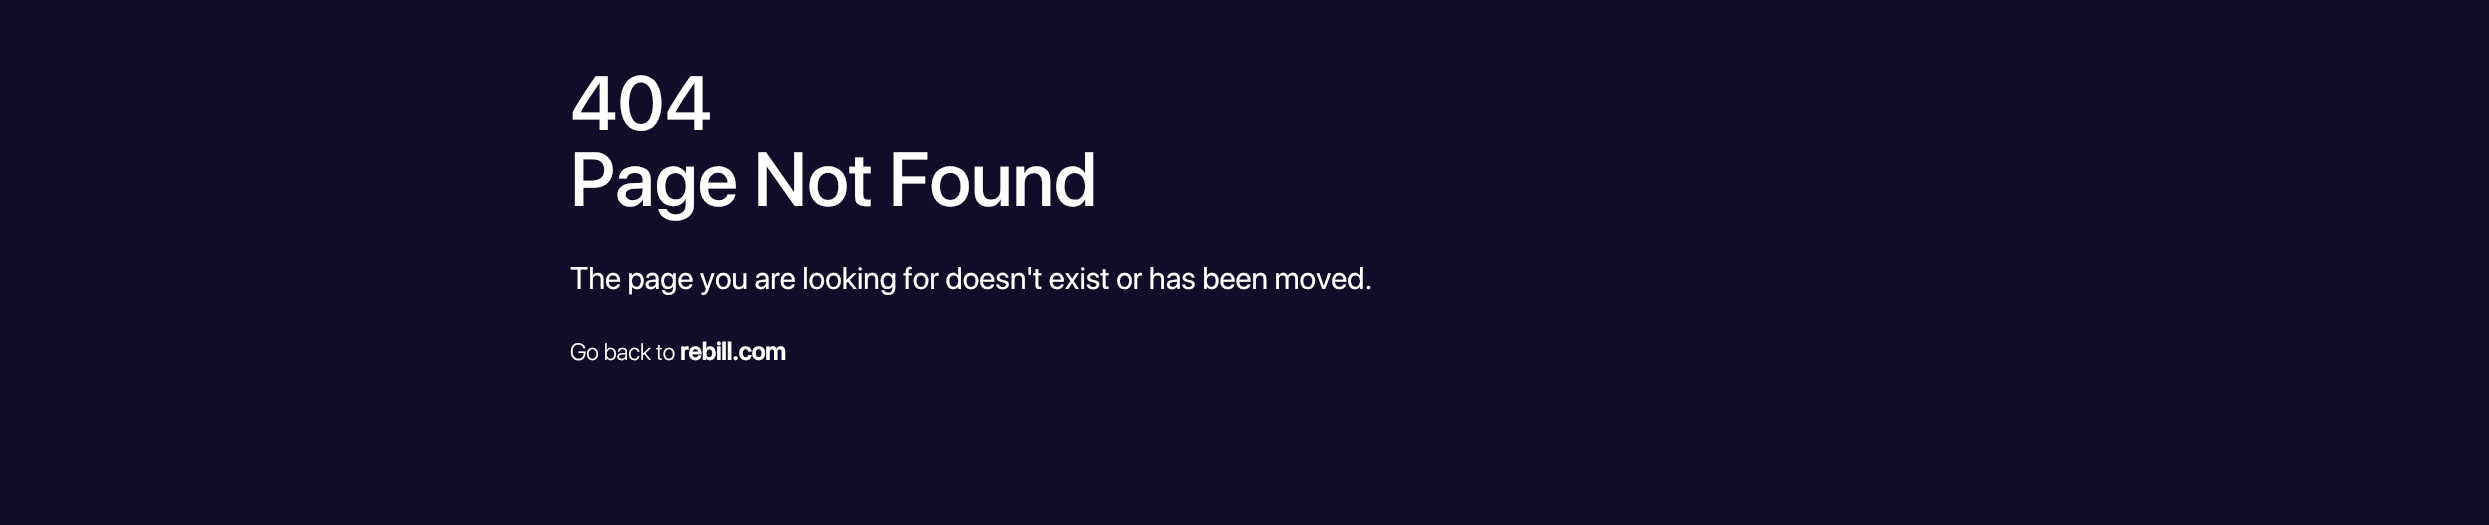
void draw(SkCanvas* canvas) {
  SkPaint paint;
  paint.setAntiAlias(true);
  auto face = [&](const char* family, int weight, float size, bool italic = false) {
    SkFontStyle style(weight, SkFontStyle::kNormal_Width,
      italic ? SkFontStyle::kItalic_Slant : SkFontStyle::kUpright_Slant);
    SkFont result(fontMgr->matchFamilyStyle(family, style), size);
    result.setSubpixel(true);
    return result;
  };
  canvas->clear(0xff110d28);
  auto f0 = face("SF Pro Display", 500, 76.25f);
  paint.setColor(0xffffffff);
  canvas->drawString("404", 570, 130, f0, paint);
  canvas->drawString("Page Not Found", 570, 206, f0, paint);
  auto f1 = face("SF Pro Display", 400, 31.25f);
  canvas->drawString("The page you are looking for doesn't exist or has been moved.", 570, 289, f1, paint);
  auto f2 = face("SF Pro Display", 300, 23.75f);
  canvas->drawString("Go back to", 570, 360, f2, paint);
  auto f3 = face("SF Pro Display", 700, 25);
  canvas->drawString("rebill.com", 680, 360, f3, paint);
}
